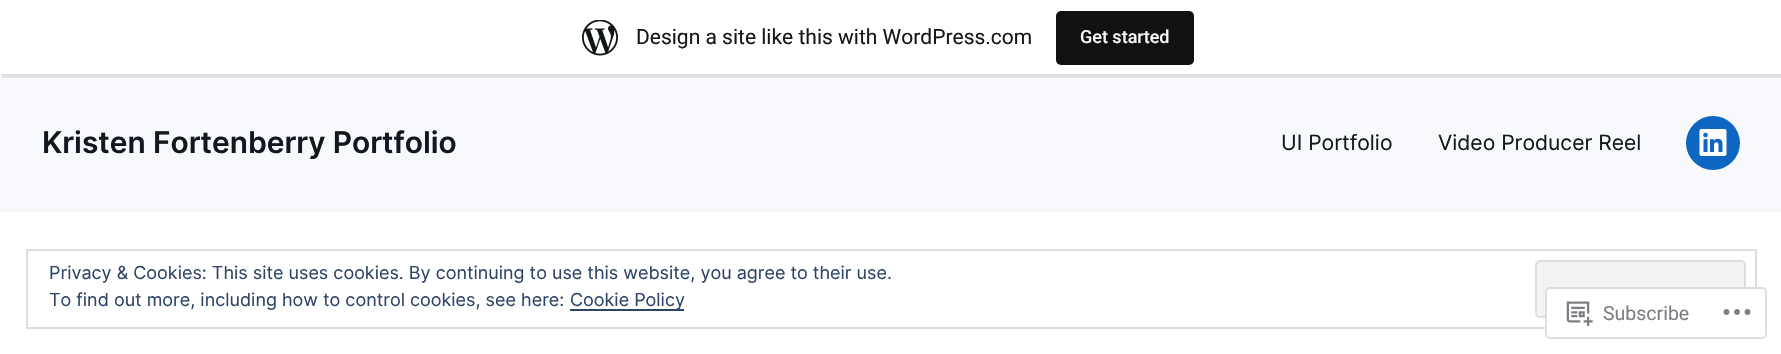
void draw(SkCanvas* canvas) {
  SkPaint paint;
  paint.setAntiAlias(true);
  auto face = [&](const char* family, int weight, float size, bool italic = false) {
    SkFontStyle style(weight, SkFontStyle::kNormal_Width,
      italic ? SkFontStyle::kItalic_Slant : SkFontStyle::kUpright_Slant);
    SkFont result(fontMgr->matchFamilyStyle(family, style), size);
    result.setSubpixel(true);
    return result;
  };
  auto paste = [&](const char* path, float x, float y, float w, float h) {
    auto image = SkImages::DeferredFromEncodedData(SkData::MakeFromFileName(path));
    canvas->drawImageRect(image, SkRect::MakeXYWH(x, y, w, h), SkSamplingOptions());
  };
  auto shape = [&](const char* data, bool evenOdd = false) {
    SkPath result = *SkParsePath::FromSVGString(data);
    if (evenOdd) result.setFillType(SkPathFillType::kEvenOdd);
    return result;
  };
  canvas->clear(0xffffffff);
  paint.setColor(0xfff7f9fd);
  canvas->drawRect(SkRect::MakeXYWH(0, 74, 1781, 138), paint);
  paint.setColor(0x0d000000);
  paint.setMaskFilter(SkMaskFilter::MakeBlur(kNormal_SkBlurStyle, 1.5f));
  canvas->drawRect(SkRect::MakeXYWH(0, 2, 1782, 73), paint);
  paint.setMaskFilter(nullptr);
  paint.setColor(0x14000000);
  canvas->drawPath(shape("M2 74V78H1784V5H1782V74Z"), paint);
  paint.setColor(0xffffffff);
  canvas->drawRect(SkRect::MakeXYWH(0, 1, 1781, 73), paint);
  paste("img/1.png", 582, 20, 36, 36);
  paint.setColor(0xff111111);
  canvas->drawRoundRect(SkRect::MakeXYWH(1056, 11, 138, 54), 5, 5, paint);
  paint.setColor(0xff0d66c2);
  canvas->drawCircle(1713, 143, 27, paint);
  paste("img/2.png", 1699, 129, 28, 27);
  paint.setStroke(true);
  paint.setStrokeWidth(2);
  paint.setColor(0xffdedede);
  canvas->drawRect(SkRect::MakeXYWH(27, 250, 1729, 78), paint);
  paint.setStroke(false);
  paint.setColor(0xfff3f3f3);
  canvas->drawRoundRect(SkRect::MakeXYWH(1536, 261, 209, 56), 4, 4, paint);
  paint.setStroke(true);
  paint.setColor(0xffdedede);
  canvas->drawRoundRect(SkRect::MakeXYWH(1536, 261, 209, 56), 4, 4, paint);
  paint.setStroke(false);
  paint.setColor(0xff2e4467);
  canvas->drawRect(SkRect::MakeXYWH(570, 309, 114, 2), paint);
  paint.setColor(0xfaffffff);
  canvas->drawRoundRect(SkRect::MakeXYWH(1545, 287, 222, 52), 5, 5, paint);
  paint.setStroke(true);
  paint.setColor(0xfadcdcde);
  canvas->drawRoundRect(SkRect::MakeXYWH(1546, 288, 220, 50), 4, 4, paint);
  paste("img/3.png", 1566, 301, 27, 25);
  paste("img/4.png", 1723, 309, 28, 6);
  auto f0 = face("Roboto", 400, 21);
  paint.setStroke(false);
  paint.setColor(0xff171717);
  canvas->drawString("Design a site like this with WordPress.com", 636, 44, f0, paint);
  auto f1 = face("Roboto", 500, 18);
  paint.setColor(0xfff6f7f7);
  canvas->drawString("Get started", 1080, 43, f1, paint);
  auto f2 = face("Inter", 600, 29.9f);
  paint.setColor(0xff11181f);
  canvas->drawString("Kristen Fortenberry Portfolio", 42, 153, f2, paint);
  auto f3 = face("Inter", 400, 21.1f);
  canvas->drawString("UI Portfolio", 1281, 150, f3, paint);
  canvas->drawString("Video Producer Reel", 1438, 150, f3, paint);
  auto f4 = face("Inter", 400, 18);
  paint.setColor(0xff2e4467);
  {
    const struct { const char* s; float x, y; } items[] = {
      {"Privacy & Cookies: This site uses cookies. By continuing to use this website, you agree to their use.", 49, 279},
      {"To find out more, including how to control cookies, see here:", 49, 306},
      {"Cookie Policy", 570, 306},
    };
    for (auto [s, x, y] : items) {
      canvas->drawString(s, x, y, f4, paint);
    }
  }
  auto f5 = face("Roboto", 400, 19.5f);
  paint.setColor(0xff7b7f84);
  canvas->drawString("Subscribe", 1603, 320, f5, paint);
}
